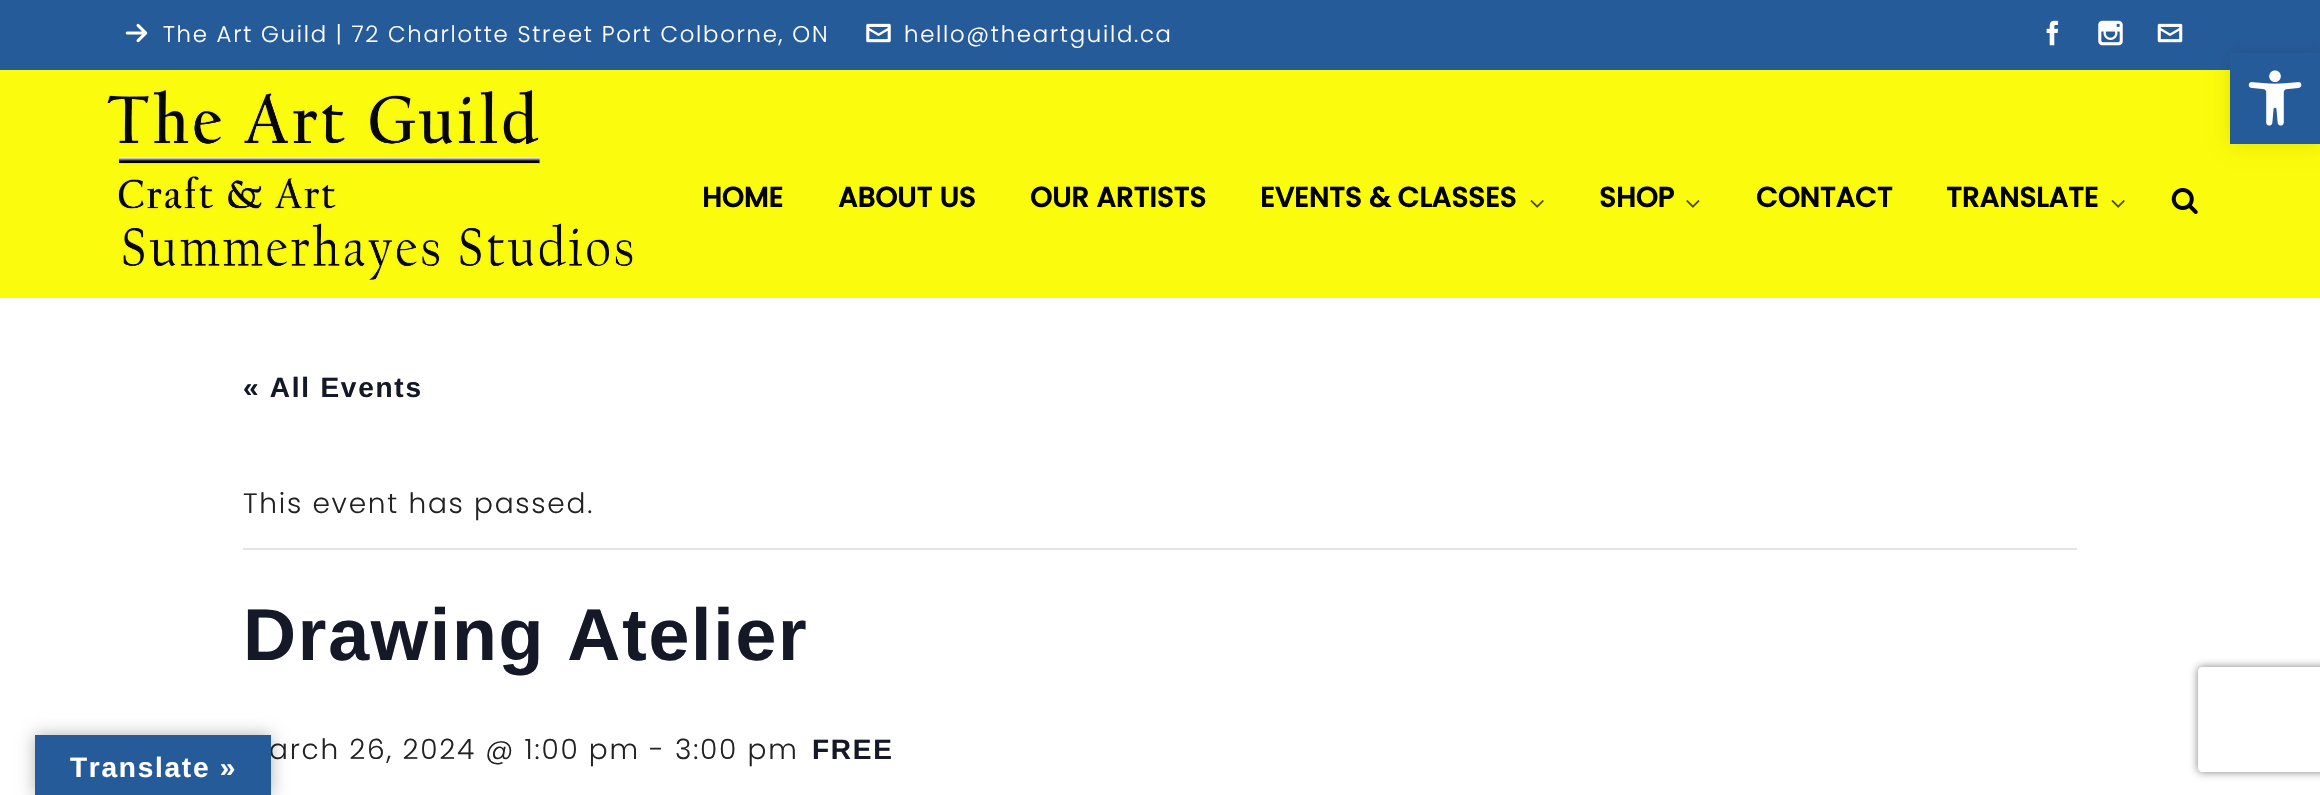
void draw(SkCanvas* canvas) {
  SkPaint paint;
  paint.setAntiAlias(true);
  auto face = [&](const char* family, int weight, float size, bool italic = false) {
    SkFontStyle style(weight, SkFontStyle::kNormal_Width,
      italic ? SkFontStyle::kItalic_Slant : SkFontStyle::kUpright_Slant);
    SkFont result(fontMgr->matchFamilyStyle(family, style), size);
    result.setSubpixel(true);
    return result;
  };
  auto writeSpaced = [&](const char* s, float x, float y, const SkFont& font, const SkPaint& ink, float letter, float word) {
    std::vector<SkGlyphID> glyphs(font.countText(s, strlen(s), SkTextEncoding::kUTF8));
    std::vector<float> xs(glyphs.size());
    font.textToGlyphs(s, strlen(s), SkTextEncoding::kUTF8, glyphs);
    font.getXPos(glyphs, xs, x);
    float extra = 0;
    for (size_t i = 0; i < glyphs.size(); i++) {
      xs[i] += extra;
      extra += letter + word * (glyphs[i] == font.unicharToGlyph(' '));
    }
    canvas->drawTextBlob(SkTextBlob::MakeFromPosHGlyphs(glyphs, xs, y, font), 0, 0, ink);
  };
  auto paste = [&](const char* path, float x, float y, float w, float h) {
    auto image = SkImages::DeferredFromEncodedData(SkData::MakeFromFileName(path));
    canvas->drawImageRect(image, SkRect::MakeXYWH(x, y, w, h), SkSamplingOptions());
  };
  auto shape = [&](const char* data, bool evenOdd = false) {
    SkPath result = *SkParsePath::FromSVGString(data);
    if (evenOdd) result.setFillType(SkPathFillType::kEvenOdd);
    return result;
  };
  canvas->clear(0xffffffff);
  paint.setColor(0xff265b9a);
  canvas->drawRect(SkRect::MakeXYWH(0, 0, 2320, 70), paint);
  paste("img/1.png", 125, 23, 23, 20);
  paste("img/2.png", 866, 23, 25, 20);
  paste("img/3.png", 2046, 20, 13, 26);
  paste("img/4.png", 2098, 20, 25, 26);
  paste("img/5.png", 2157, 23, 26, 20);
  paint.setColor(0xfffbfb0d);
  canvas->drawRect(SkRect::MakeXYWH(0, 70, 2320, 228), paint);
  paste("img/6.png", 106, 89, 528, 194);
  paste("img/7.png", 1530, 200, 14, 8);
  paste("img/8.png", 1686, 200, 14, 8);
  paste("img/7.png", 2111, 200, 14, 8);
  paste("img/9.png", 2171, 188, 27, 26);
  paint.setColor(0xffe4e4e4);
  canvas->drawRect(SkRect::MakeXYWH(243, 548, 1834, 2), paint);
  paint.setColor(0x1a000000);
  paint.setMaskFilter(SkMaskFilter::MakeBlur(kNormal_SkBlurStyle, 9));
  canvas->drawRect(SkRect::MakeXYWH(2230, 53, 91, 91), paint);
  paint.setMaskFilter(nullptr);
  paint.setColor(0xff265b9a);
  canvas->drawRect(SkRect::MakeXYWH(2230, 53, 90, 91), paint);
  paste("img/10.png", 2248, 70, 54, 56);
  paint.setColor(0x4d000000);
  paint.setMaskFilter(SkMaskFilter::MakeBlur(kNormal_SkBlurStyle, 8));
  canvas->drawRect(SkRect::MakeXYWH(35, 735, 236, 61), paint);
  paint.setMaskFilter(nullptr);
  canvas->save();
  canvas->clipPath(shape("M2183 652H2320V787H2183ZM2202 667H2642C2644 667 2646 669 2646 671V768C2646 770 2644 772 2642 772H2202C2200 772 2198 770 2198 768V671C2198 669 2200 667 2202 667Z", true), true);
  paint.setColor(0xff808080);
  paint.setMaskFilter(SkMaskFilter::MakeBlur(kNormal_SkBlurStyle, 4.5f));
  canvas->drawRoundRect(SkRect::MakeXYWH(2198, 667, 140, 105), 4, 4, paint);
  paint.setMaskFilter(nullptr);
  canvas->restore();
  auto f0 = face("Poppins", 300, 22.75f);
  paint.setColor(0xffffffff);
  writeSpaced("The Art Guild | 72 Charlotte Street Port Colborne, ON", 163, 42, f0, paint, 1.75f, 0);
  writeSpaced("hello@theartguild.ca", 904, 42, f0, paint, 1.75f, 0);
  auto f1 = face("Poppins", 700, 28);
  paint.setColor(0xff000000);
  {
    const struct { const char* s; float x, y; } items[] = {
      {"HOME", 702, 207},
      {"ABOUT US", 838, 207},
      {"OUR ARTISTS", 1030, 207},
      {"EVENTS & CLASSES", 1260, 207},
      {"SHOP", 1599, 207},
      {"CONTACT", 1756, 207},
      {"TRANSLATE", 1946, 207},
    };
    for (auto [s, x, y] : items) {
      canvas->drawString(s, x, y, f1, paint);
    }
  }
  auto f2 = face("Liberation Sans", 700, 28);
  paint.setColor(0xff141827);
  writeSpaced("« All Events", 243, 397, f2, paint, 1.75f, 0);
  auto f3 = face("Poppins", 300, 28);
  paint.setColor(0xff222222);
  writeSpaced("This event has passed.", 243, 513, f3, paint, 1.75f, 0);
  auto f4 = face("Liberation Sans", 700, 73.5f);
  paint.setColor(0xff141827);
  writeSpaced("Drawing Atelier", 243, 660, f4, paint, 1.75f, 0);
  paint.setColor(0xff222222);
  writeSpaced("arch 26, 2024 @ 1:00 pm - 3:00 pm", 269, 759, f3, paint, 1.75f, 0);
  paint.setColor(0xff141827);
  writeSpaced("FREE", 812, 759, f2, paint, 1.75f, 0);
  paint.setColor(0xff265b9a);
  canvas->drawRect(SkRect::MakeXYWH(35, 735, 236, 60), paint);
  paint.setColor(0xffffffff);
  writeSpaced("Translate »", 70, 777, f2, paint, 1.75f, 0);
}
